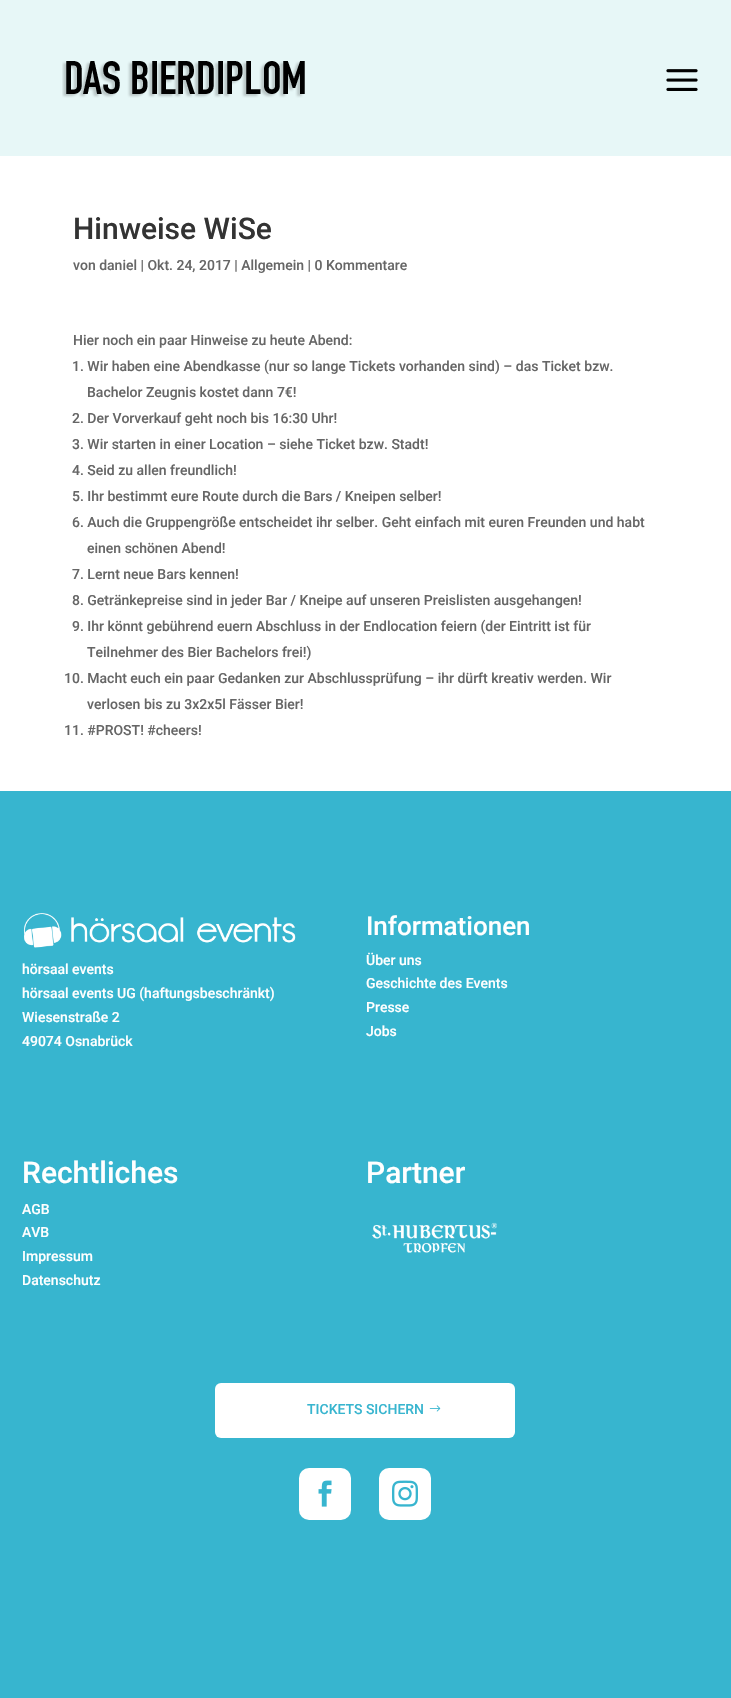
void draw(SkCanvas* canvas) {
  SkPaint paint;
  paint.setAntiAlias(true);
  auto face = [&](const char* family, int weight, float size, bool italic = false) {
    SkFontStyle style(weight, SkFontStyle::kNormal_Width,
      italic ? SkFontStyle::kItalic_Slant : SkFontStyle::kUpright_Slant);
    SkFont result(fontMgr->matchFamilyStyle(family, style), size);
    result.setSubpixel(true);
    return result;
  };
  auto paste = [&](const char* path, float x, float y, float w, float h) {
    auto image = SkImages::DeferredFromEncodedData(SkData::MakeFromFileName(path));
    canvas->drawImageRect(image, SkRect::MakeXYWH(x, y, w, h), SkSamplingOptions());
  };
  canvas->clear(0xff37b5cf);
  paint.setColor(0xffe7f7f7);
  canvas->drawRect(SkRect::MakeXYWH(0, 0, 731, 156), paint);
  paste("img/1.png", 62, 61, 243, 37);
  paste("img/2.png", 666, 69, 32, 22);
  paint.setColor(0xffffffff);
  canvas->drawRect(SkRect::MakeXYWH(0, 156, 731, 635), paint);
  paste("img/3.png", 23, 913, 273, 35);
  paste("img/4.png", 372, 1222, 125, 31);
  canvas->drawRoundRect(SkRect::MakeXYWH(215, 1383, 300, 55), 6, 6, paint);
  paste("img/5.png", 429, 1405, 12, 7);
  canvas->drawRoundRect(SkRect::MakeXYWH(299, 1468, 52, 52), 10, 10, paint);
  paste("img/6.png", 318, 1480, 14, 27);
  canvas->drawRoundRect(SkRect::MakeXYWH(379, 1468, 52, 52), 10, 10, paint);
  paste("img/7.png", 392, 1480, 26, 27);
  auto f0 = face("Roboto", 500, 30);
  paint.setColor(0xff333333);
  canvas->drawString("Hinweise WiSe", 73, 239, f0, paint);
  auto f1 = face("Roboto", 500, 14);
  paint.setColor(0xff666666);
  {
    const struct { const char* s; float x, y; } items[] = {
      {"von daniel | Okt. 24, 2017 | Allgemein | 0 Kommentare", 73, 270},
      {"Hier noch ein paar Hinweise zu heute Abend:", 73, 345},
      {"1. Wir haben eine Abendkasse (nur so lange Tickets vorhanden sind) – das Ticket bzw.", 72, 371},
      {"Bachelor Zeugnis kostet dann 7€!", 87, 397},
      {"2. Der Vorverkauf geht noch bis 16:30 Uhr!", 72, 423},
      {"3. Wir starten in einer Location – siehe Ticket bzw. Stadt!", 72, 449},
      {"4. Seid zu allen freundlich!", 72, 475},
      {"5. Ihr bestimmt eure Route durch die Bars / Kneipen selber!", 72, 501},
      {"6. Auch die Gruppengröße entscheidet ihr selber. Geht einfach mit euren Freunden und habt", 72, 527},
      {"einen schönen Abend!", 87, 553},
      {"7. Lernt neue Bars kennen!", 72, 579},
      {"8. Getränkepreise sind in jeder Bar / Kneipe auf unseren Preislisten ausgehangen!", 72, 605},
      {"9. Ihr könnt gebührend euern Abschluss in der Endlocation feiern (der Eintritt ist für", 72, 631},
      {"Teilnehmer des Bier Bachelors frei!)", 87, 657},
      {"10. Macht euch ein paar Gedanken zur Abschlussprüfung – ihr dürft kreativ werden. Wir", 64, 683},
      {"verlosen bis zu 3x2x5l Fässer Bier!", 87, 709},
      {"11. #PROST! #cheers!", 64, 735},
    };
    for (auto [s, x, y] : items) {
      canvas->drawString(s, x, y, f1, paint);
    }
  }
  paint.setColor(0xffffffff);
  {
    const struct { const char* s; float x, y; } items[] = {
      {"hörsaal events", 22, 974},
      {"hörsaal events UG (haftungsbeschränkt)", 22, 998},
      {"Wiesenstraße 2", 22, 1022},
      {"49074 Osnabrück", 22, 1046},
    };
    for (auto [s, x, y] : items) {
      canvas->drawString(s, x, y, f1, paint);
    }
  }
  auto f2 = face("Roboto", 500, 26);
  canvas->drawString("Informationen", 366, 935, f2, paint);
  {
    const struct { const char* s; float x, y; } items[] = {
      {"Über uns", 366, 965},
      {"Geschichte des Events", 366, 988},
      {"Presse", 366, 1012},
      {"Jobs", 366, 1036},
    };
    for (auto [s, x, y] : items) {
      canvas->drawString(s, x, y, f1, paint);
    }
  }
  canvas->drawString("Rechtliches", 22, 1183, f0, paint);
  {
    const struct { const char* s; float x, y; } items[] = {
      {"AGB", 22, 1214},
      {"AVB", 22, 1237},
      {"Impressum", 22, 1261},
      {"Datenschutz", 22, 1285},
    };
    for (auto [s, x, y] : items) {
      canvas->drawString(s, x, y, f1, paint);
    }
  }
  canvas->drawString("Partner", 366, 1183, f0, paint);
  paint.setColor(0xff38b5cf);
  canvas->drawString("TICKETS SICHERN", 307, 1414, f1, paint);
}
